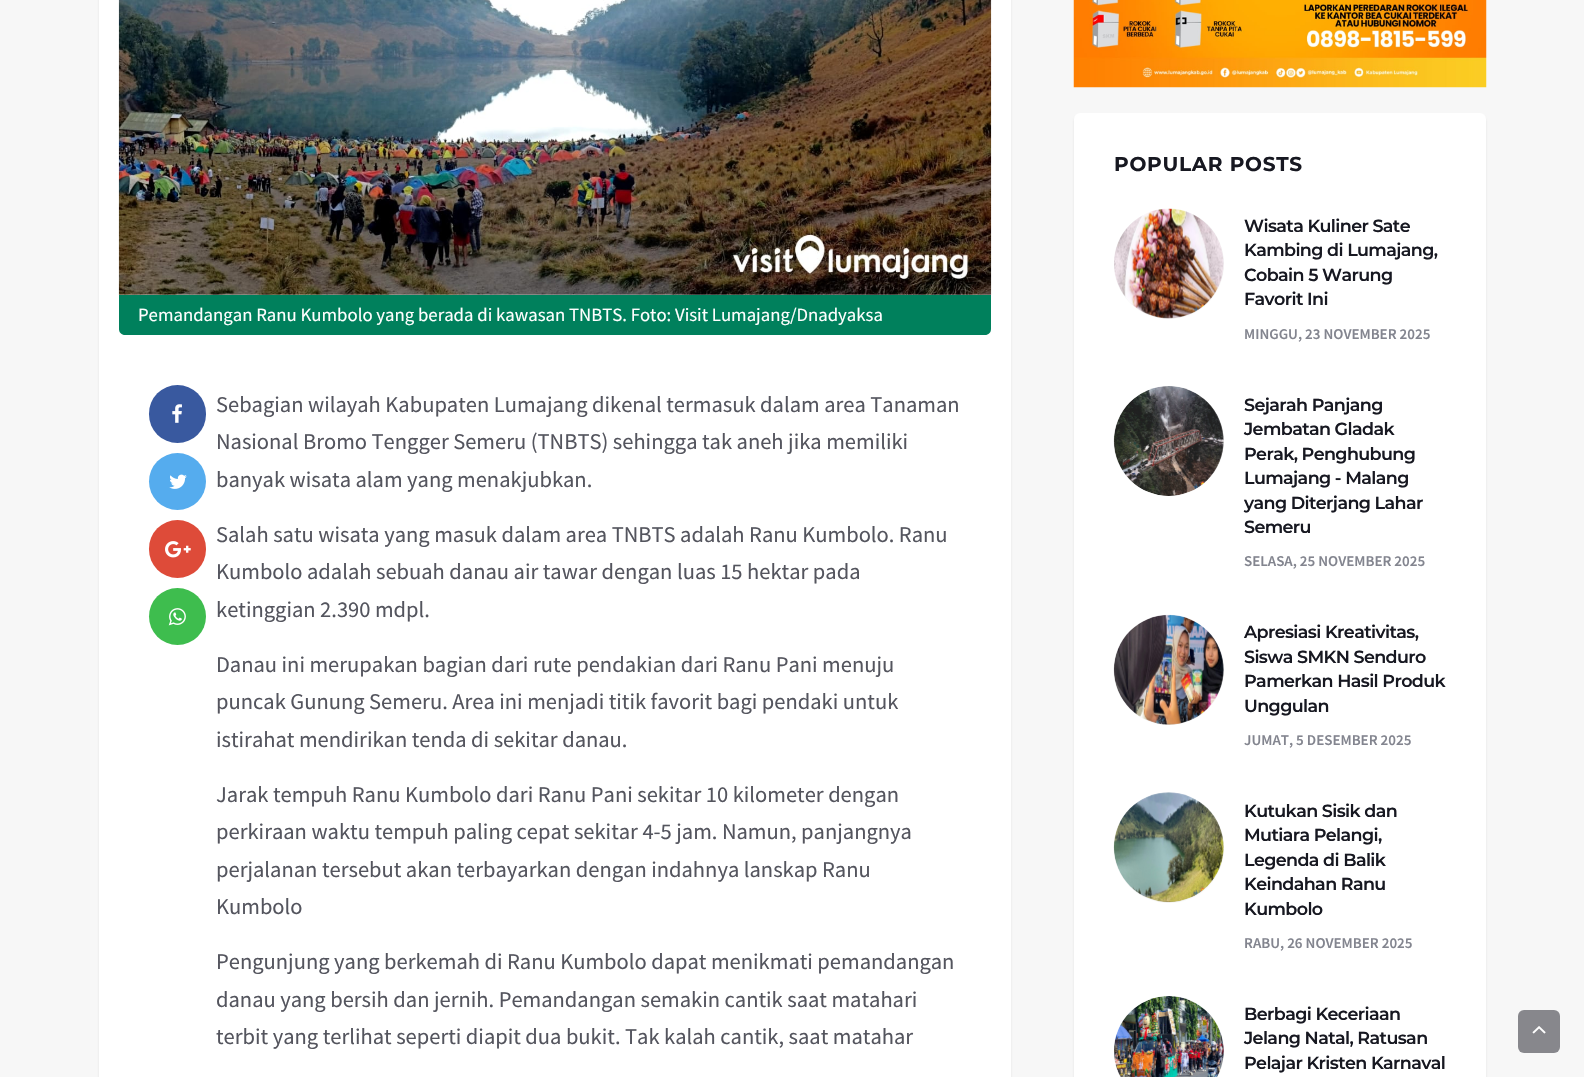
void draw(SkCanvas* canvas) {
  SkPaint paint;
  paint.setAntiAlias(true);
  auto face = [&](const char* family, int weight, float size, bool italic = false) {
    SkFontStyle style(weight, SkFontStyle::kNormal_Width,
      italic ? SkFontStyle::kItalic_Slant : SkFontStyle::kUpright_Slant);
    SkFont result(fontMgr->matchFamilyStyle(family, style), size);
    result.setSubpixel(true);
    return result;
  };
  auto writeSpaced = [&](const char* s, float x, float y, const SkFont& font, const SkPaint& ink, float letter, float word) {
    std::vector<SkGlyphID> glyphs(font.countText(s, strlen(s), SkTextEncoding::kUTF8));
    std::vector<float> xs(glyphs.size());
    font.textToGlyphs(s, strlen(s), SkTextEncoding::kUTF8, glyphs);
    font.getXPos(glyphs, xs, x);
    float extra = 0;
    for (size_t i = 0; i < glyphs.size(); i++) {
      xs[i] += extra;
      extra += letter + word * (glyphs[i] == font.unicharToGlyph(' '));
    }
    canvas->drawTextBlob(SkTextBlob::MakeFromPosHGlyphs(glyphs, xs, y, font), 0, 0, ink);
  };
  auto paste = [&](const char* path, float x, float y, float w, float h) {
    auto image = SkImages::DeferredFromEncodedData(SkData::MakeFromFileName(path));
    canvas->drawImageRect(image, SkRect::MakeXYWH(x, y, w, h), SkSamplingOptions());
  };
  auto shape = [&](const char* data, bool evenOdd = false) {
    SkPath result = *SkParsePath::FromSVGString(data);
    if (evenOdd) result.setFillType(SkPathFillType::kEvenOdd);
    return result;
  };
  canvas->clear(0xfff7f7f7);
  paint.setColor(0x1a000000);
  paint.setMaskFilter(SkMaskFilter::MakeBlur(kNormal_SkBlurStyle, 1));
  canvas->drawRoundRect(SkRect::MakeXYWH(99, -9, 912, 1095), 6, 6, paint);
  paint.setMaskFilter(nullptr);
  paint.setColor(0xffffffff);
  canvas->drawRect(SkRect::MakeXYWH(99, 0, 912, 1077), paint);
  paste("img/1.png", 118, 0, 874, 295);
  paint.setColor(0xff00805c);
  canvas->drawPath(shape("M119 295H991V329C991 332.5 988.5 335 985 335H125C121.5 335 119 332.5 119 329Z"), paint);
  paint.setColor(0xff39599f);
  canvas->drawRoundRect(SkRect::MakeXYWH(149, 385, 57, 58), 28.5f, 28.5f, paint);
  paste("img/2.png", 172, 404, 10, 19);
  paint.setColor(0xff55acee);
  canvas->drawCircle(177.5f, 481.5f, 28.5f, paint);
  paste("img/3.png", 169, 474, 18, 15);
  paint.setColor(0xffde4b39);
  canvas->drawRoundRect(SkRect::MakeXYWH(149, 520, 57, 58), 28.5f, 28.5f, paint);
  paste("img/4.png", 165, 541, 26, 17);
  paint.setColor(0xff3ebd4e);
  canvas->drawCircle(177.5f, 616.5f, 28.5f, paint);
  paste("img/5.png", 168, 608, 18, 18);
  paste("img/6.png", 1073, 0, 414, 88);
  paint.setColor(0x1a000000);
  paint.setMaskFilter(SkMaskFilter::MakeBlur(kNormal_SkBlurStyle, 1));
  canvas->drawRoundRect(SkRect::MakeXYWH(1074, 116, 412, 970), 6, 6, paint);
  paint.setMaskFilter(nullptr);
  paint.setColor(0xffffffff);
  canvas->drawRoundRect(SkRect::MakeXYWH(1074, 113, 412, 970), 6, 6, paint);
  paint.setColor(0xfff7f7f7);
  canvas->drawCircle(1169, 264, 55, paint);
  paste("img/7.png", 1114, 208, 110, 111);
  canvas->drawCircle(1169, 441, 55, paint);
  paste("img/8.png", 1113, 386, 111, 110);
  canvas->drawCircle(1169, 670, 55, paint);
  paste("img/9.png", 1113, 614, 111, 111);
  canvas->drawCircle(1169, 848, 55, paint);
  paste("img/10.png", 1113, 792, 111, 111);
  canvas->drawCircle(1169, 1051, 55, paint);
  paste("img/11.png", 1114, 996, 110, 81);
  paint.setColor(0x80171821);
  canvas->drawRoundRect(SkRect::MakeXYWH(1518, 1010, 42, 43), 6, 6, paint);
  paste("img/12.png", 1532, 1026, 14, 8);
  auto f0 = face("Source Sans Pro", 400, 18.75f);
  paint.setColor(0xffffffff);
  canvas->drawString("Pemandangan Ranu Kumbolo yang berada di kawasan TNBTS. Foto: Visit Lumajang/Dnadyaksa", 138, 321, f0, paint);
  auto f1 = face("Source Sans Pro", 400, 22.5f);
  paint.setColor(0xff54555e);
  {
    const struct { const char* s; float x, y; } items[] = {
      {"Sebagian wilayah Kabupaten Lumajang dikenal termasuk dalam area Tanaman", 216, 412},
      {"Nasional Bromo Tengger Semeru (TNBTS) sehingga tak aneh jika memiliki", 216, 449},
      {"banyak wisata alam yang menakjubkan.", 216, 487},
      {"Salah satu wisata yang masuk dalam area TNBTS adalah Ranu Kumbolo. Ranu", 216, 542},
      {"Kumbolo adalah sebuah danau air tawar dengan luas 15 hektar pada", 216, 579},
      {"ketinggian 2.390 mdpl.", 216, 617},
      {"Danau ini merupakan bagian dari rute pendakian dari Ranu Pani menuju", 216, 672},
      {"puncak Gunung Semeru. Area ini menjadi titik favorit bagi pendaki untuk", 216, 709},
      {"istirahat mendirikan tenda di sekitar danau.", 216, 747},
      {"Jarak tempuh Ranu Kumbolo dari Ranu Pani sekitar 10 kilometer dengan", 216, 802},
      {"perkiraan waktu tempuh paling cepat sekitar 4-5 jam. Namun, panjangnya", 216, 839},
      {"perjalanan tersebut akan terbayarkan dengan indahnya lanskap Ranu", 216, 877},
      {"Kumbolo", 216, 914},
      {"Pengunjung yang berkemah di Ranu Kumbolo dapat menikmati pemandangan", 216, 969},
      {"danau yang bersih dan jernih. Pemandangan semakin cantik saat matahari", 216, 1007},
      {"terbit yang terlihat seperti diapit dua bukit. Tak kalah cantik, saat matahar", 216, 1044},
    };
    for (auto [s, x, y] : items) {
      canvas->drawString(s, x, y, f1, paint);
    }
  }
  auto f2 = face("Montserrat", 700, 20);
  paint.setColor(0xff171821);
  writeSpaced("POPULAR POSTS", 1114, 171, f2, paint, 0.75f, 0);
  auto f3 = face("Montserrat", 600, 17.5f);
  {
    const struct { const char* s; float x, y; } items[] = {
      {"Wisata Kuliner Sate", 1244, 232},
      {"Kambing di Lumajang,", 1244, 256},
      {"Cobain 5 Warung", 1244, 281},
      {"Favorit Ini", 1244, 305},
    };
    for (auto [s, x, y] : items) {
      writeSpaced(s, x, y, f3, paint, -0.6f, 0);
    }
  }
  auto f4 = face("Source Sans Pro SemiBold", 600, 15);
  paint.setColor(0xff83858f);
  canvas->drawString("MINGGU, 23 NOVEMBER 2025", 1244, 339, f4, paint);
  paint.setColor(0xff171821);
  {
    const struct { const char* s; float x, y; } items[] = {
      {"Sejarah Panjang", 1244, 411},
      {"Jembatan Gladak", 1244, 435},
      {"Perak, Penghubung", 1244, 460},
      {"Lumajang - Malang", 1244, 484},
      {"yang Diterjang Lahar", 1244, 509},
      {"Semeru", 1244, 533},
    };
    for (auto [s, x, y] : items) {
      writeSpaced(s, x, y, f3, paint, -0.6f, 0);
    }
  }
  paint.setColor(0xff83858f);
  canvas->drawString("SELASA, 25 NOVEMBER 2025", 1244, 566, f4, paint);
  paint.setColor(0xff171821);
  {
    const struct { const char* s; float x, y; } items[] = {
      {"Apresiasi Kreativitas,", 1244, 638},
      {"Siswa SMKN Senduro", 1244, 663},
      {"Pamerkan Hasil Produk", 1244, 687},
      {"Unggulan", 1244, 712},
    };
    for (auto [s, x, y] : items) {
      writeSpaced(s, x, y, f3, paint, -0.6f, 0);
    }
  }
  paint.setColor(0xff83858f);
  canvas->drawString("JUMAT, 5 DESEMBER 2025", 1244, 745, f4, paint);
  paint.setColor(0xff171821);
  {
    const struct { const char* s; float x, y; } items[] = {
      {"Kutukan Sisik dan", 1244, 817},
      {"Mutiara Pelangi,", 1244, 841},
      {"Legenda di Balik", 1244, 866},
      {"Keindahan Ranu", 1244, 890},
      {"Kumbolo", 1244, 915},
    };
    for (auto [s, x, y] : items) {
      writeSpaced(s, x, y, f3, paint, -0.6f, 0);
    }
  }
  paint.setColor(0xff83858f);
  canvas->drawString("RABU, 26 NOVEMBER 2025", 1244, 948, f4, paint);
  paint.setColor(0xff171821);
  {
    const struct { const char* s; float x, y; } items[] = {
      {"Berbagi Keceriaan", 1244, 1020},
      {"Jelang Natal, Ratusan", 1244, 1044},
      {"Pelajar Kristen Karnaval", 1244, 1069},
    };
    for (auto [s, x, y] : items) {
      writeSpaced(s, x, y, f3, paint, -0.6f, 0);
    }
  }
}
